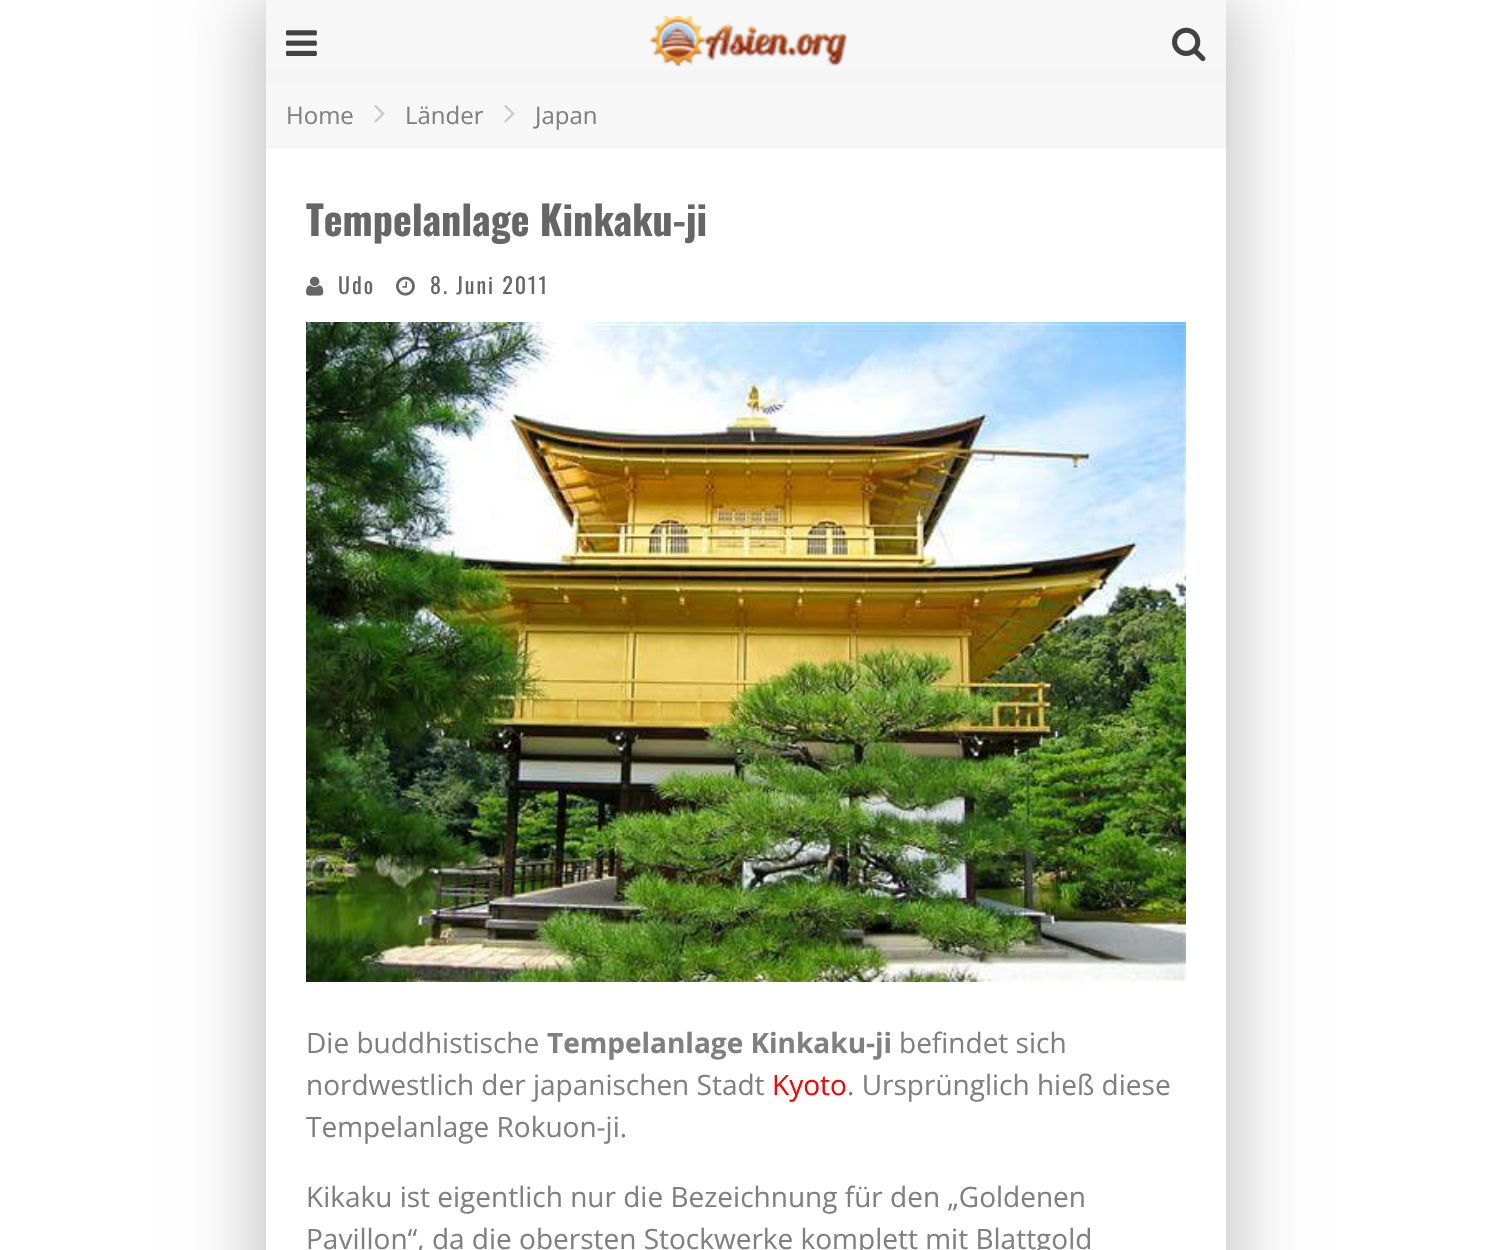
void draw(SkCanvas* canvas) {
  SkPaint paint;
  paint.setAntiAlias(true);
  auto face = [&](const char* family, int weight, float size, bool italic = false) {
    SkFontStyle style(weight, SkFontStyle::kNormal_Width,
      italic ? SkFontStyle::kItalic_Slant : SkFontStyle::kUpright_Slant);
    SkFont result(fontMgr->matchFamilyStyle(family, style), size);
    result.setSubpixel(true);
    return result;
  };
  auto writeSpaced = [&](const char* s, float x, float y, const SkFont& font, const SkPaint& ink, float letter, float word) {
    std::vector<SkGlyphID> glyphs(font.countText(s, strlen(s), SkTextEncoding::kUTF8));
    std::vector<float> xs(glyphs.size());
    font.textToGlyphs(s, strlen(s), SkTextEncoding::kUTF8, glyphs);
    font.getXPos(glyphs, xs, x);
    float extra = 0;
    for (size_t i = 0; i < glyphs.size(); i++) {
      xs[i] += extra;
      extra += letter + word * (glyphs[i] == font.unicharToGlyph(' '));
    }
    canvas->drawTextBlob(SkTextBlob::MakeFromPosHGlyphs(glyphs, xs, y, font), 0, 0, ink);
  };
  auto paste = [&](const char* path, float x, float y, float w, float h) {
    auto image = SkImages::DeferredFromEncodedData(SkData::MakeFromFileName(path));
    canvas->drawImageRect(image, SkRect::MakeXYWH(x, y, w, h), SkSamplingOptions());
  };
  auto shape = [&](const char* data, bool evenOdd = false) {
    SkPath result = *SkParsePath::FromSVGString(data);
    if (evenOdd) result.setFillType(SkPathFillType::kEvenOdd);
    return result;
  };
  canvas->clear(0xffffffff);
  canvas->save();
  canvas->clipPath(shape("M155 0H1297V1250H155ZM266 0H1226V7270H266Z", true), true);
  paint.setColor(0x26000000);
  paint.setMaskFilter(SkMaskFilter::MakeBlur(kNormal_SkBlurStyle, 30));
  canvas->drawRect(SkRect::MakeXYWH(246, 0, 960, 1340), paint);
  paint.setMaskFilter(nullptr);
  canvas->restore();
  canvas->save();
  canvas->clipPath(shape("M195 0H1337V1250H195ZM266 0H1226V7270H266Z", true), true);
  paint.setMaskFilter(SkMaskFilter::MakeBlur(kNormal_SkBlurStyle, 30));
  canvas->drawRect(SkRect::MakeXYWH(286, 0, 960, 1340), paint);
  paint.setMaskFilter(nullptr);
  canvas->restore();
  paint.setColor(0xfff5f5f5);
  canvas->drawRect(SkRect::MakeXYWH(266, 70, 960, 12), paint);
  paint.setColor(0xfff7f7f7);
  canvas->drawRect(SkRect::MakeXYWH(266, 0, 960, 70), paint);
  paste("img/1.png", 286, 30, 31, 26);
  paste("img/2.png", 649, 16, 198, 50);
  paste("img/3.png", 1172, 27, 34, 35);
  canvas->drawRect(SkRect::MakeXYWH(266, 82, 960, 64), paint);
  paint.setColor(0xfff3f3f3);
  canvas->drawRect(SkRect::MakeXYWH(266, 146, 960, 2), paint);
  paste("img/4.png", 374, 105, 11, 18);
  paste("img/4.png", 504, 105, 11, 18);
  paste("img/5.png", 306, 276, 18, 20);
  paste("img/6.png", 396, 276, 19, 20);
  paste("img/7.png", 306, 322, 880, 660);
  auto f0 = face("Open Sans", 400, 24);
  paint.setColor(0xff808080);
  {
    const struct { const char* s; float x, y; } items[] = {
      {"Home", 286, 124},
      {"Länder", 405, 124},
      {"Japan", 535, 124},
    };
    for (auto [s, x, y] : items) {
      canvas->drawString(s, x, y, f0, paint);
    }
  }
  auto f1 = face("Oswald", 700, 40);
  paint.setColor(0xff666666);
  canvas->drawString("Tempelanlage Kinkaku-ji", 306, 236, f1, paint);
  auto f2 = face("Oswald", 400, 22);
  writeSpaced("Udo", 338, 294, f2, paint, 2, 0);
  writeSpaced("8. Juni 2011", 430, 294, f2, paint, 2, 0);
  auto f3 = face("Open Sans", 400, 28);
  paint.setColor(0xff808080);
  canvas->drawString("Die buddhistische", 306, 1053, f3, paint);
  auto f4 = face("Open Sans", 700, 28);
  canvas->drawString("Tempelanlage Kinkaku-ji", 547, 1053, f4, paint);
  canvas->drawString("befindet sich", 899, 1053, f3, paint);
  canvas->drawString("nordwestlich der japanischen Stadt", 306, 1095, f3, paint);
  paint.setColor(0xffff0000);
  canvas->drawString("Kyoto", 772, 1095, f3, paint);
  paint.setColor(0xff808080);
  {
    const struct { const char* s; float x, y; } items[] = {
      {". Ursprünglich hieß diese", 847, 1095},
      {"Tempelanlage Rokuon-ji.", 306, 1137},
      {"Kikaku ist eigentlich nur die Bezeichnung für den „Goldenen", 306, 1207},
      {"Pavillon“, da die obersten Stockwerke komplett mit Blattgold", 306, 1249},
    };
    for (auto [s, x, y] : items) {
      canvas->drawString(s, x, y, f3, paint);
    }
  }
}
